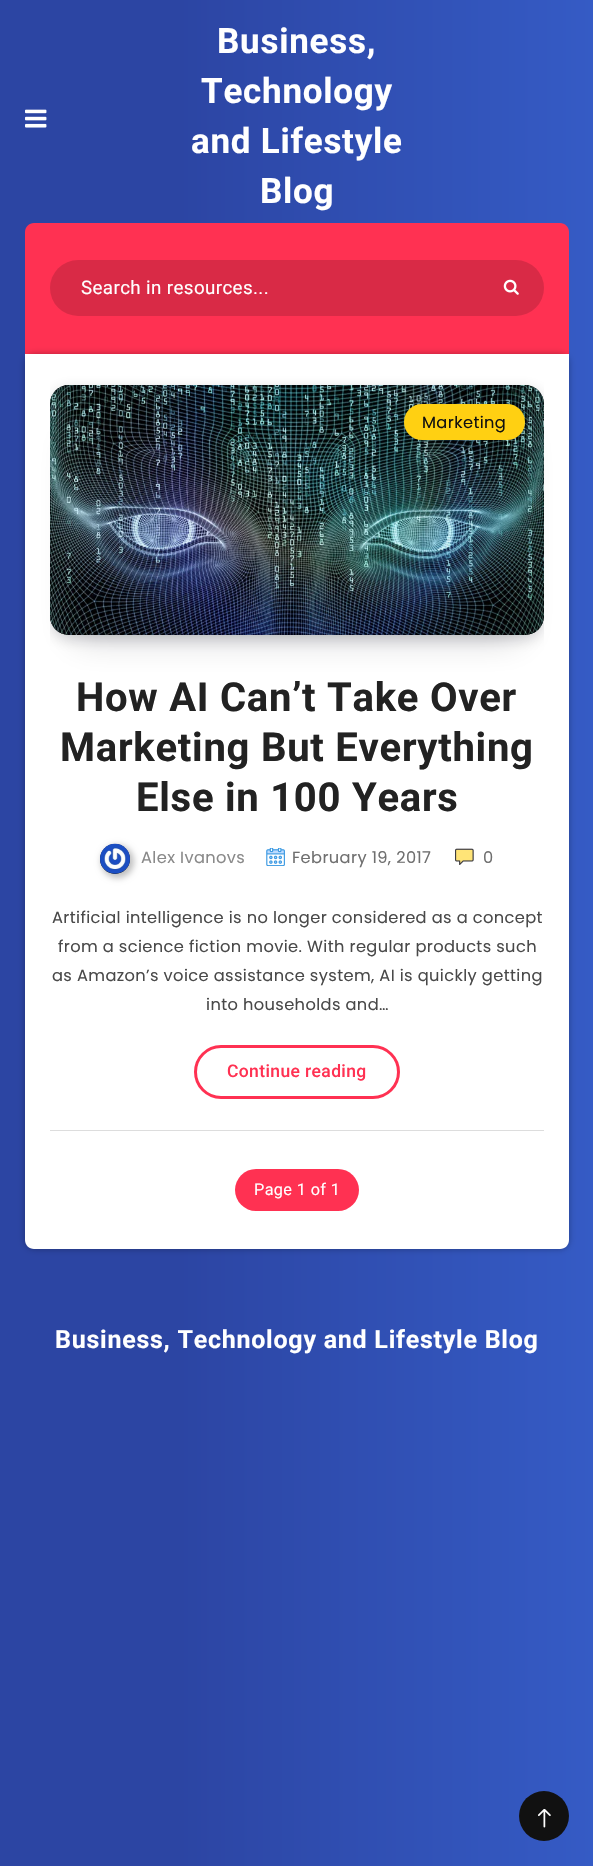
void draw(SkCanvas* canvas) {
  SkPaint paint;
  paint.setAntiAlias(true);
  auto face = [&](const char* family, int weight, float size, bool italic = false) {
    SkFontStyle style(weight, SkFontStyle::kNormal_Width,
      italic ? SkFontStyle::kItalic_Slant : SkFontStyle::kUpright_Slant);
    SkFont result(fontMgr->matchFamilyStyle(family, style), size);
    result.setSubpixel(true);
    return result;
  };
  auto writeSpaced = [&](const char* s, float x, float y, const SkFont& font, const SkPaint& ink, float letter, float word) {
    std::vector<SkGlyphID> glyphs(font.countText(s, strlen(s), SkTextEncoding::kUTF8));
    std::vector<float> xs(glyphs.size());
    font.textToGlyphs(s, strlen(s), SkTextEncoding::kUTF8, glyphs);
    font.getXPos(glyphs, xs, x);
    float extra = 0;
    for (size_t i = 0; i < glyphs.size(); i++) {
      xs[i] += extra;
      extra += letter + word * (glyphs[i] == font.unicharToGlyph(' '));
    }
    canvas->drawTextBlob(SkTextBlob::MakeFromPosHGlyphs(glyphs, xs, y, font), 0, 0, ink);
  };
  auto paste = [&](const char* path, float x, float y, float w, float h) {
    auto image = SkImages::DeferredFromEncodedData(SkData::MakeFromFileName(path));
    canvas->drawImageRect(image, SkRect::MakeXYWH(x, y, w, h), SkSamplingOptions());
  };
  auto shape = [&](const char* data, bool evenOdd = false) {
    SkPath result = *SkParsePath::FromSVGString(data);
    if (evenOdd) result.setFillType(SkPathFillType::kEvenOdd);
    return result;
  };
  canvas->clear(0xffffffff);
  {
    const SkColor colors[] = {0xff2c45a3, 0xff355bc5};
    const float stops[] = {0.3f, 1};
    const SkPoint ends[] = {{0, 918}, {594, 918}};
    paint.setShader(SkGradientShader::MakeLinear(ends, colors, stops, 2, SkTileMode::kClamp));
    paint.setAlpha(255);
  }
  canvas->drawRect(SkRect::MakeXYWH(0, 0, 593, 1866), paint);
  paste("img/1.png", 25, 109, 22, 19);
  paint.setShader(nullptr);
  paint.setColor(0xffff3152);
  canvas->drawPath(shape("M34 223H560C565 223 569 227 569 232V354H25V232C25 227 29 223 34 223Z"), paint);
  paint.setColor(0xffd92a46);
  canvas->drawRoundRect(SkRect::MakeXYWH(50, 260, 494, 56), 28, 28, paint);
  paste("img/2.png", 503, 279, 16, 16);
  paint.setColor(0x4d000000);
  paint.setMaskFilter(SkMaskFilter::MakeBlur(kNormal_SkBlurStyle, 3));
  canvas->drawRoundRect(SkRect::MakeXYWH(25, 354, 544, 895), 9, 9, paint);
  paint.setMaskFilter(nullptr);
  paint.setColor(0xffffffff);
  canvas->drawPath(shape("M25 354H569V1240C569 1245 565 1249 560 1249H34C29 1249 25 1245 25 1240Z"), paint);
  paint.setColor(0xffdddddd);
  canvas->drawRect(SkRect::MakeXYWH(50, 1130, 494, 1), paint);
  paint.setColor(0x33070a19);
  paint.setMaskFilter(SkMaskFilter::MakeBlur(kNormal_SkBlurStyle, 17));
  canvas->drawRect(SkRect::MakeXYWH(75, 438, 444, 200), paint);
  paint.setMaskFilter(nullptr);
  canvas->save();
  canvas->clipRect(SkRect::MakeXYWH(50, 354, 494, 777));
  paint.setMaskFilter(SkMaskFilter::MakeBlur(kNormal_SkBlurStyle, 7.5f));
  canvas->drawRoundRect(SkRect::MakeXYWH(51, 390, 492, 248), 18, 18, paint);
  paint.setMaskFilter(nullptr);
  canvas->restore();
  paint.setColor(0xff000000);
  canvas->drawRoundRect(SkRect::MakeXYWH(50, 385, 494, 250), 19, 19, paint);
  paste("img/3.png", 50, 385, 494, 250);
  paint.setColor(0xffffd012);
  canvas->drawRoundRect(SkRect::MakeXYWH(404, 404, 121, 36), 18, 18, paint);
  paint.setColor(0x40000000);
  paint.setMaskFilter(SkMaskFilter::MakeBlur(kNormal_SkBlurStyle, 3));
  canvas->drawRoundRect(SkRect::MakeXYWH(101, 845, 33, 33), 16.5f, 16.5f, paint);
  paint.setMaskFilter(nullptr);
  paint.setColor(0xff111111);
  canvas->drawCircle(115, 859, 15, paint);
  paste("img/4.png", 100, 843, 30, 31);
  paste("img/5.png", 266, 848, 19, 18);
  paste("img/6.png", 455, 848, 19, 17);
  paint.setStroke(true);
  paint.setStrokeWidth(3);
  paint.setColor(0xffff3152);
  canvas->drawRoundRect(SkRect::MakeXYWH(195.5f, 1046.5f, 203, 51), 25.5f, 25.5f, paint);
  paint.setStroke(false);
  canvas->drawRoundRect(SkRect::MakeXYWH(235, 1169, 124, 42), 21, 21, paint);
  paint.setColor(0xff111111);
  canvas->drawCircle(544, 1816, 25, paint);
  paste("img/7.png", 538, 1809, 13, 19);
  auto f0 = face("Roboto", 700, 35);
  paint.setColor(0xffffffff);
  {
    const struct { const char* s; float x, y; } items[] = {
      {"Business,", 217, 53},
      {"Technology", 201, 103},
      {"and Lifestyle", 191, 153},
      {"Blog", 260, 203},
    };
    for (auto [s, x, y] : items) {
      writeSpaced(s, x, y, f0, paint, 0.75f, 0);
    }
  }
  auto f1 = face("Roboto", 400, 18.75f);
  writeSpaced("Search in resources...", 81, 294, f1, paint, 0.38f, 0);
  auto f2 = face("Poppins", 400, 16.25f);
  paint.setColor(0xff111111);
  writeSpaced("Marketing", 422, 428, f2, paint, 0.38f, 0);
  auto f3 = face("Roboto", 700, 40);
  paint.setColor(0xff222222);
  {
    const struct { const char* s; float x, y; } items[] = {
      {"How AI Can’t Take Over", 76, 711},
      {"Marketing But Everything", 60, 761},
      {"Else in 100 Years", 136, 811},
    };
    for (auto [s, x, y] : items) {
      writeSpaced(s, x, y, f3, paint, 0.75f, 0);
    }
  }
  paint.setColor(0xff898989);
  writeSpaced("Alex Ivanovs", 141, 863, f2, paint, 0.38f, 0);
  paint.setColor(0xff6f6f6f);
  writeSpaced("February 19, 2017", 292, 863, f2, paint, 0.38f, 0);
  writeSpaced("0", 483, 863, f2, paint, 0.38f, 0);
  paint.setColor(0xff494949);
  {
    const struct { const char* s; float x, y; } items[] = {
      {"Artificial intelligence is no longer considered as a concept", 52, 923},
      {"from a science fiction movie. With regular products such", 58, 952},
      {"as Amazon’s voice assistance system, AI is quickly getting", 52, 981},
      {"into households and…", 206, 1010},
    };
    for (auto [s, x, y] : items) {
      writeSpaced(s, x, y, f2, paint, 0.38f, 0);
    }
  }
  auto f4 = face("Roboto", 500, 17.5f);
  paint.setColor(0xffff3152);
  writeSpaced("Continue reading", 227, 1077, f4, paint, 0.38f, 0);
  auto f5 = face("Roboto", 400, 16.25f);
  paint.setColor(0xffffffff);
  writeSpaced("Page 1 of 1", 254, 1195, f5, paint, 0.38f, 0);
  auto f6 = face("Roboto", 700, 25);
  writeSpaced("Business, Technology and Lifestyle Blog", 55, 1348, f6, paint, 0.75f, 0);
}
